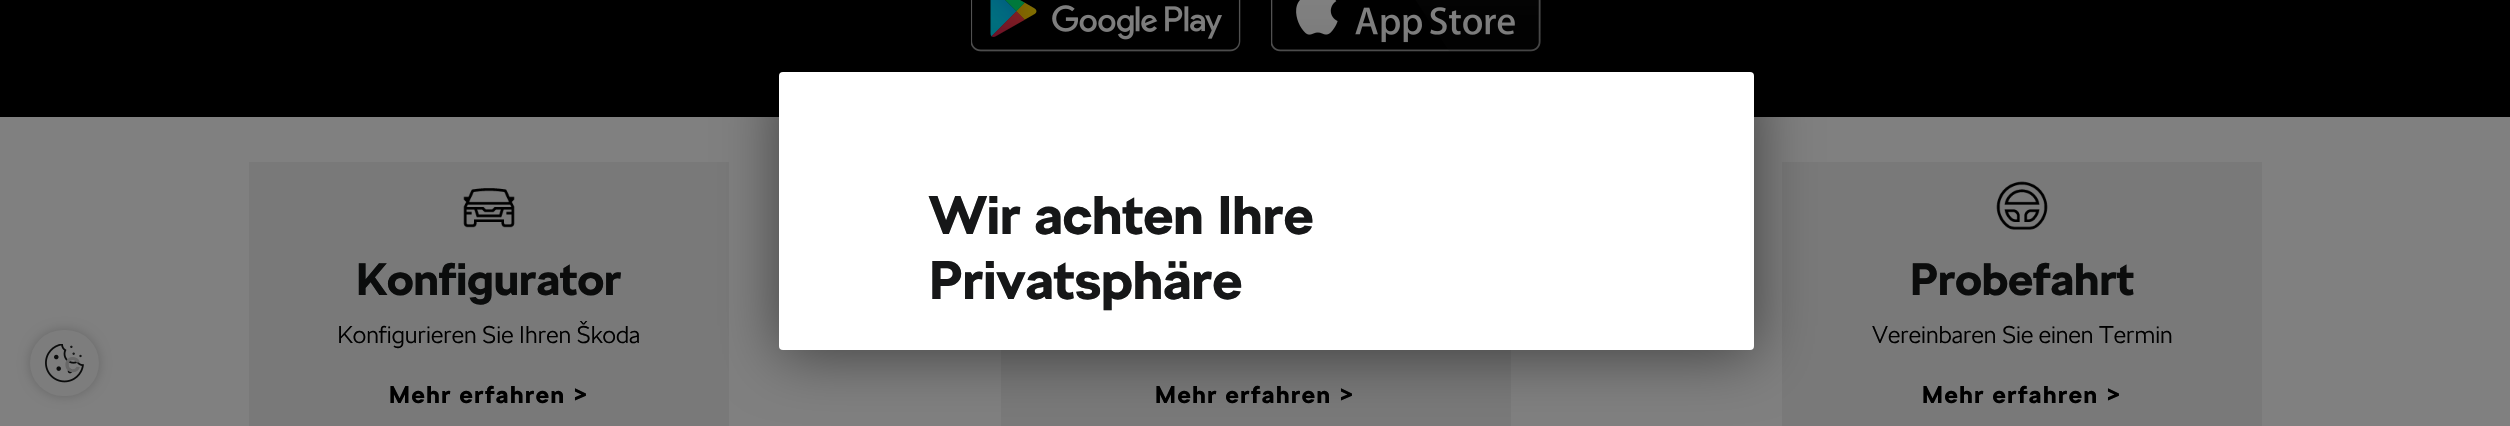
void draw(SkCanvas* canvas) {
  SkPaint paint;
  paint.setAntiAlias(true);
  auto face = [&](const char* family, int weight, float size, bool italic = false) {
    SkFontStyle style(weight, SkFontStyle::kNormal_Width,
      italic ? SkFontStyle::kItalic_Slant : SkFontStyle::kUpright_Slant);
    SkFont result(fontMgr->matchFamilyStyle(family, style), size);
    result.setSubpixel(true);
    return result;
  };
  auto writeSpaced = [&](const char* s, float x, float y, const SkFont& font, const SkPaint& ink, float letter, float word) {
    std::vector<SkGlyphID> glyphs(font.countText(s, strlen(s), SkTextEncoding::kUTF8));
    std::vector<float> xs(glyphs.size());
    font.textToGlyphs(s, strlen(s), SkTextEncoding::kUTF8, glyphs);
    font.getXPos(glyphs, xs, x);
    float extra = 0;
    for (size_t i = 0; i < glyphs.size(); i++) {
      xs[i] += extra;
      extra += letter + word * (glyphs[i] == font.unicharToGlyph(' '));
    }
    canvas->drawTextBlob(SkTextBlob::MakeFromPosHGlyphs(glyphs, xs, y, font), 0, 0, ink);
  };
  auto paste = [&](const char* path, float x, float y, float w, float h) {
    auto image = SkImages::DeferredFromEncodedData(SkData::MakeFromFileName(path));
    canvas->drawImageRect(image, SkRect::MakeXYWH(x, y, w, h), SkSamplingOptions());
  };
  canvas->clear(0xff808080);
  paint.setColor(0xff000000);
  canvas->drawRect(SkRect::MakeXYWH(0, 0, 2510, 117), paint);
  paste("img/2.png", 971, 0, 270, 52);
  paste("img/3.png", 1271, 0, 270, 52);
  {
    const struct { float x, y, w, h; SkColor color; } items[] = {
      {249, 162, 480, 264, 0xff797979},
      {1001, 350, 510, 76, 0xff797979},
      {1782, 162, 480, 264, 0xff797979},
    };
    for (auto [x, y, w, h, color] : items) {
      paint.setColor(color);
      canvas->drawRect(SkRect::MakeXYWH(x, y, w, h), paint);
    }
  }
  paint.setColor(0x80000000);
  paint.setMaskFilter(SkMaskFilter::MakeBlur(kNormal_SkBlurStyle, 30));
  canvas->drawRoundRect(SkRect::MakeXYWH(780, 77, 975, 277), 4, 4, paint);
  paint.setMaskFilter(nullptr);
  paint.setColor(0xffffffff);
  canvas->drawRoundRect(SkRect::MakeXYWH(779, 72, 975, 278), 4, 4, paint);
  paint.setColor(0x33000000);
  paint.setMaskFilter(SkMaskFilter::MakeBlur(kNormal_SkBlurStyle, 6));
  canvas->drawRoundRect(SkRect::MakeXYWH(30, 330, 69, 66), 33, 33, paint);
  paint.setMaskFilter(nullptr);
  paint.setColor(0xff7d7d7d);
  canvas->drawRoundRect(SkRect::MakeXYWH(30, 330, 69, 66), 33, 33, paint);
  paste("img/1.png", 45, 344, 39, 39);
  paste("img/4.png", 463, 188, 52, 40);
  paste("img/5.png", 1996, 181, 52, 49);
  auto f0 = face("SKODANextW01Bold", 700, 54);
  paint.setColor(0xff161718);
  canvas->drawString("Wir achten Ihre", 929, 234, f0, paint);
  canvas->drawString("Privatsphäre", 929, 299, f0, paint);
  auto f1 = face("SKODANextW01Bold", 700, 21);
  paint.setColor(0xff676767);
  writeSpaced("C", 65, 372, f1, paint, 1, 0);
  auto f2 = face("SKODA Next", 700, 45);
  paint.setColor(0xff0b0c0c);
  canvas->drawString("Konfigurator", 356, 295, f2, paint);
  auto f3 = face("SKODA Next", 300, 24);
  paint.setColor(0xff000000);
  canvas->drawString("Konfigurieren Sie Ihren Škoda", 337, 343, f3, paint);
  auto f4 = face("SKODA Next", 700, 24);
  writeSpaced("Mehr erfahren >", 389, 403, f4, paint, 1.5f, 0);
  writeSpaced("Mehr erfahren >", 1155, 403, f4, paint, 1.5f, 0);
  paint.setColor(0xff0b0c0c);
  canvas->drawString("Probefahrt", 1910, 295, f2, paint);
  paint.setColor(0xff000000);
  canvas->drawString("Vereinbaren Sie einen Termin", 1872, 343, f3, paint);
  writeSpaced("Mehr erfahren >", 1922, 403, f4, paint, 1.5f, 0);
}
